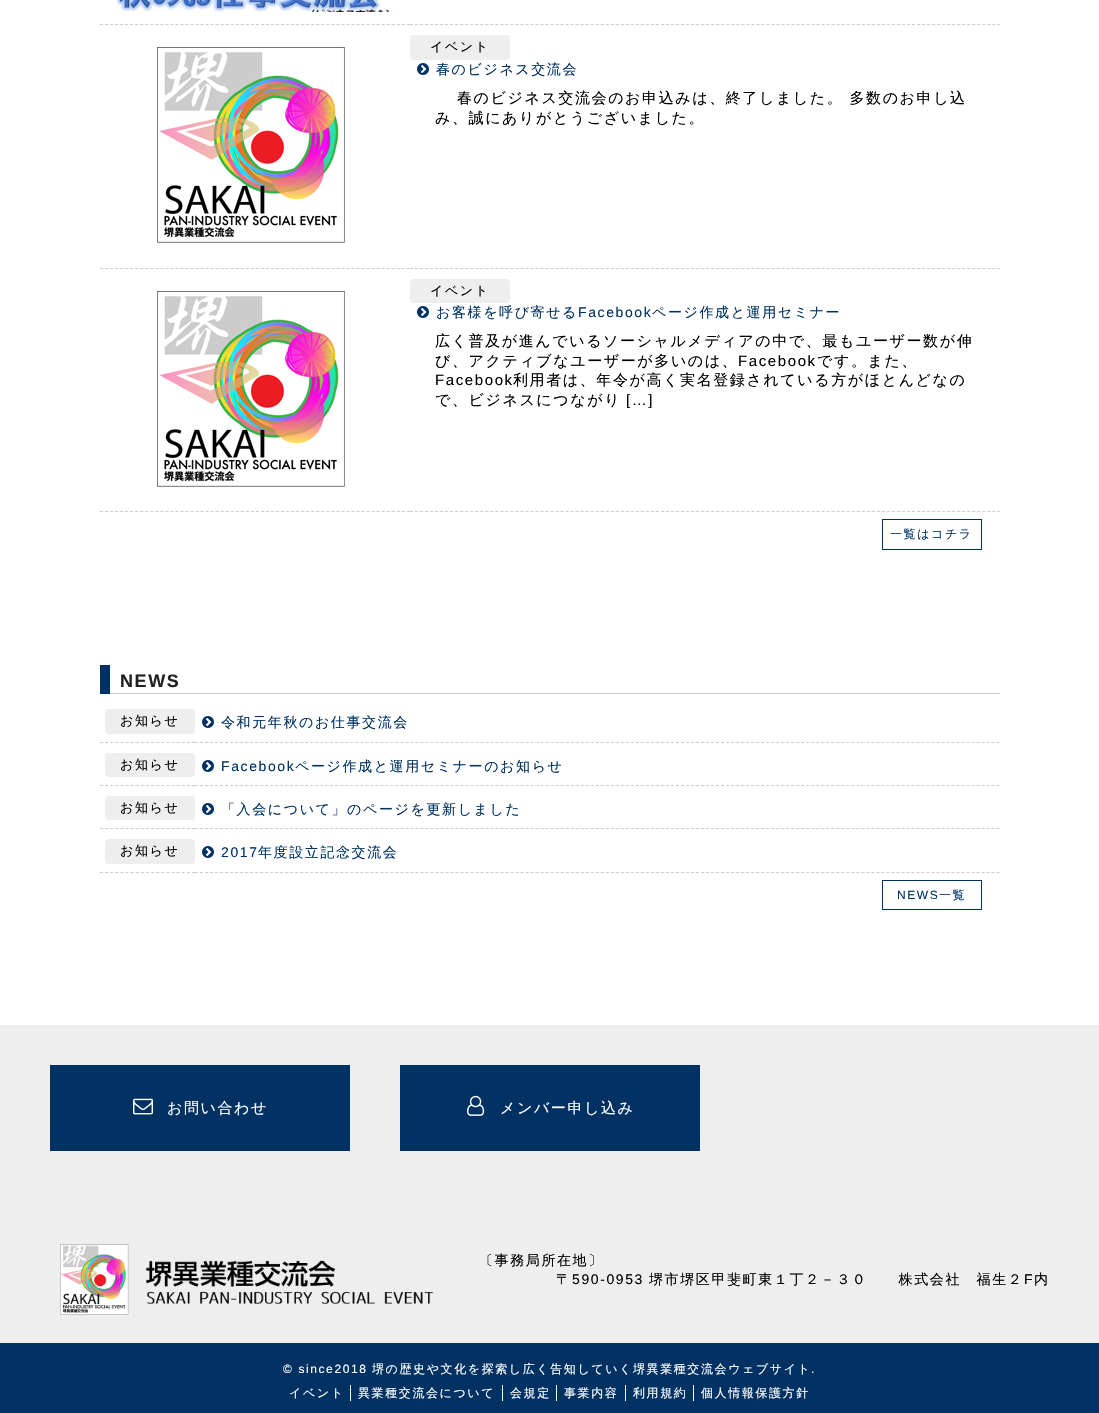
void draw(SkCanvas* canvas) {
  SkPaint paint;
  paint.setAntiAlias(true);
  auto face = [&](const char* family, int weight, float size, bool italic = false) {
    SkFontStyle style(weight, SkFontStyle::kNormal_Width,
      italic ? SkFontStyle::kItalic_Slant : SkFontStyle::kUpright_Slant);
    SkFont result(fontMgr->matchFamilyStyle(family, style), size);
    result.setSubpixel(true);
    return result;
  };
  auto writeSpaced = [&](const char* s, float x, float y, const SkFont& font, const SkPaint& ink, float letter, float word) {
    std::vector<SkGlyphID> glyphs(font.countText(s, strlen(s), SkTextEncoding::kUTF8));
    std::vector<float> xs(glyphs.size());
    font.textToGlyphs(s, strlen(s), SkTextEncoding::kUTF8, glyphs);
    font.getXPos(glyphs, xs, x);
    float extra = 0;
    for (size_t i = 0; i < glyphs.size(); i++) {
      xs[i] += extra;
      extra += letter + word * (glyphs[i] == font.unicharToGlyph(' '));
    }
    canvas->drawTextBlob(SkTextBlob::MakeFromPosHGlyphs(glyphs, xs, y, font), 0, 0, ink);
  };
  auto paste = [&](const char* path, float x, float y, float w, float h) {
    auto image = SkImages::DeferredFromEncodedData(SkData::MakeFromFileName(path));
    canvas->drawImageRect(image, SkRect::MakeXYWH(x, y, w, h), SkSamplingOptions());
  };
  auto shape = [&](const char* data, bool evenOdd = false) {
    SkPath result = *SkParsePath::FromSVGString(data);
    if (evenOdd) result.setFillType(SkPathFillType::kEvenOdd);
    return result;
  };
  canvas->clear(0xffffffff);
  paint.setStroke(true);
  paint.setStrokeWidth(1);
  paint.setColor(0xffcccccc);
  paint.setPathEffect(SkDashPathEffect::Make({{3, 2.03f}}, 0));
  canvas->drawPath(shape("M100 24.5H410"), paint);
  paint.setPathEffect(nullptr);
  paste("img/1.png", 116, 0, 280, 12);
  paint.setPathEffect(SkDashPathEffect::Make({{3, 2.02f}}, 0));
  canvas->drawPath(shape("M410 24.5H1000"), paint);
  paint.setPathEffect(nullptr);
  paint.setPathEffect(SkDashPathEffect::Make({{3, 2.03f}}, 0));
  canvas->drawPath(shape("M100 268.5H410"), paint);
  paint.setPathEffect(nullptr);
  paste("img/2.png", 157, 47, 188, 196);
  paint.setPathEffect(SkDashPathEffect::Make({{3, 2.02f}}, 0));
  canvas->drawPath(shape("M410 268.5H1000"), paint);
  paint.setPathEffect(nullptr);
  paint.setStroke(false);
  paint.setColor(0xffeeeeee);
  canvas->drawRoundRect(SkRect::MakeXYWH(410, 35, 100, 25), 4, 4, paint);
  paste("img/3.png", 417, 63, 12, 12);
  paint.setStroke(true);
  paint.setColor(0xffcccccc);
  paint.setPathEffect(SkDashPathEffect::Make({{3, 2.03f}}, 0));
  canvas->drawPath(shape("M100 511.5H410"), paint);
  paint.setPathEffect(nullptr);
  paste("img/2.png", 157, 291, 188, 196);
  paint.setPathEffect(SkDashPathEffect::Make({{3, 2.02f}}, 0));
  canvas->drawPath(shape("M410 511.5H1000"), paint);
  paint.setPathEffect(nullptr);
  paint.setStroke(false);
  paint.setColor(0xffeeeeee);
  canvas->drawRoundRect(SkRect::MakeXYWH(410, 279, 100, 24), 4, 4, paint);
  paste("img/3.png", 417, 306, 12, 12);
  paint.setStroke(true);
  paint.setColor(0xff003163);
  canvas->drawRect(SkRect::MakeXYWH(882.5f, 519.5f, 99, 30), paint);
  paint.setStroke(false);
  canvas->drawRect(SkRect::MakeXYWH(100, 665, 10, 29), paint);
  paint.setColor(0xffcccccc);
  canvas->drawRect(SkRect::MakeXYWH(110, 693, 890, 1), paint);
  paint.setStroke(true);
  paint.setPathEffect(SkDashPathEffect::Make({{3, 2.12f}}, 0));
  canvas->drawPath(shape("M105 742.5H195"), paint);
  paint.setPathEffect(nullptr);
  paint.setStroke(false);
  paint.setColor(0xffeeeeee);
  canvas->drawRoundRect(SkRect::MakeXYWH(105, 709, 90, 25), 4, 4, paint);
  paint.setStroke(true);
  paint.setColor(0xffcccccc);
  paint.setPathEffect(SkDashPathEffect::Make({{3, 2.01f}}, 0));
  canvas->drawPath(shape("M195 742.5H1000"), paint);
  paint.setPathEffect(nullptr);
  paste("img/3.png", 202, 716, 12, 12);
  canvas->drawPath(shape("M100 742.5H103"), paint);
  paint.setPathEffect(SkDashPathEffect::Make({{3, 2.12f}}, 0));
  canvas->drawPath(shape("M105 785.5H195"), paint);
  paint.setPathEffect(nullptr);
  paint.setStroke(false);
  paint.setColor(0xffeeeeee);
  canvas->drawRoundRect(SkRect::MakeXYWH(105, 753, 90, 24), 4, 4, paint);
  paint.setStroke(true);
  paint.setColor(0xffcccccc);
  paint.setPathEffect(SkDashPathEffect::Make({{3, 2.01f}}, 0));
  canvas->drawPath(shape("M195 785.5H1000"), paint);
  paint.setPathEffect(nullptr);
  paste("img/3.png", 202, 760, 12, 12);
  canvas->drawPath(shape("M100 785.5H103"), paint);
  paint.setPathEffect(SkDashPathEffect::Make({{3, 2.12f}}, 0));
  canvas->drawPath(shape("M105 828.5H195"), paint);
  paint.setPathEffect(nullptr);
  paint.setStroke(false);
  paint.setColor(0xffeeeeee);
  canvas->drawRoundRect(SkRect::MakeXYWH(105, 796, 90, 24), 4, 4, paint);
  paint.setStroke(true);
  paint.setColor(0xffcccccc);
  paint.setPathEffect(SkDashPathEffect::Make({{3, 2.01f}}, 0));
  canvas->drawPath(shape("M195 828.5H1000"), paint);
  paint.setPathEffect(nullptr);
  paste("img/3.png", 202, 803, 12, 12);
  canvas->drawPath(shape("M100 828.5H103"), paint);
  paint.setPathEffect(SkDashPathEffect::Make({{3, 2.12f}}, 0));
  canvas->drawPath(shape("M105 872.5H195"), paint);
  paint.setPathEffect(nullptr);
  paint.setStroke(false);
  paint.setColor(0xffeeeeee);
  canvas->drawRoundRect(SkRect::MakeXYWH(105, 839, 90, 25), 4, 4, paint);
  paint.setStroke(true);
  paint.setColor(0xffcccccc);
  paint.setPathEffect(SkDashPathEffect::Make({{3, 2.01f}}, 0));
  canvas->drawPath(shape("M195 872.5H1000"), paint);
  paint.setPathEffect(nullptr);
  paste("img/3.png", 202, 846, 12, 12);
  canvas->drawPath(shape("M100 872.5H103"), paint);
  paint.setColor(0xff003163);
  canvas->drawRect(SkRect::MakeXYWH(882.5f, 880.5f, 99, 29), paint);
  paint.setStroke(false);
  paint.setColor(0xffeeeeee);
  canvas->drawRect(SkRect::MakeXYWH(0, 1025, 1099, 318), paint);
  paint.setColor(0xff003163);
  canvas->drawRect(SkRect::MakeXYWH(50, 1065, 300, 86), paint);
  paste("img/4.png", 133, 1098, 20, 17);
  canvas->drawRect(SkRect::MakeXYWH(400, 1065, 300, 86), paint);
  paste("img/5.png", 467, 1095, 18, 21);
  paste("img/6.png", 60, 1244, 374, 71);
  {
    const struct { float x, y, w, h; SkColor color; } items[] = {
      {0, 1343, 1099, 70, 0xff003163},
      {350, 1385, 1, 16, 0xffffffff},
      {502, 1385, 1, 16, 0xffffffff},
      {556, 1385, 1, 16, 0xffffffff},
      {625, 1385, 1, 16, 0xffffffff},
      {693, 1385, 1, 16, 0xffffffff},
    };
    for (auto [x, y, w, h, color] : items) {
      paint.setColor(color);
      canvas->drawRect(SkRect::MakeXYWH(x, y, w, h), paint);
    }
  }
  auto f0 = face("WenQuanYi Zen Hei", 500, 13);
  paint.setColor(0xff000000);
  writeSpaced("イベント", 430, 51, f0, paint, 1.6f, 0);
  auto f1 = face("WenQuanYi Zen Hei", 500, 14);
  paint.setColor(0xff003163);
  writeSpaced("春のビジネス交流会", 436, 74, f1, paint, 1.6f, 0);
  auto f2 = face("WenQuanYi Zen Hei", 500, 15);
  paint.setColor(0xff000000);
  writeSpaced("春のビジネス交流会のお申込みは、終了しました。 多数のお申し込", 457, 103, f2, paint, 1.6f, 0);
  writeSpaced("み、誠にありがとうございました。", 435, 123, f2, paint, 1.6f, 0);
  writeSpaced("イベント", 430, 295, f0, paint, 1.6f, 0);
  paint.setColor(0xff003163);
  writeSpaced("お客様を呼び寄せる", 436, 317, f1, paint, 1.6f, 0);
  auto f3 = face("Liberation Sans", 400, 14);
  writeSpaced("Facebook", 578, 317, f3, paint, 1.6f, 0);
  writeSpaced("ページ作成と運用セミナー", 652, 317, f1, paint, 1.6f, 0);
  paint.setColor(0xff000000);
  writeSpaced("広く普及が進んでいるソーシャルメディアの中で、最もユーザー数が伸", 435, 346, f2, paint, 1.6f, 0);
  writeSpaced("び、アクティブなユーザーが多いのは、", 435, 366, f2, paint, 1.6f, 0);
  auto f4 = face("Liberation Sans", 400, 15);
  writeSpaced("Facebook", 738, 366, f4, paint, 1.6f, 0);
  writeSpaced("です。また、", 817, 366, f2, paint, 1.6f, 0);
  writeSpaced("Facebook", 435, 385, f4, paint, 1.6f, 0);
  writeSpaced("利用者は、年令が高く実名登録されている方がほとんどなの", 513, 385, f2, paint, 1.6f, 0);
  writeSpaced("で、ビジネスにつながり", 435, 405, f2, paint, 1.6f, 0);
  writeSpaced("[…]", 626, 405, f4, paint, 1.6f, 0);
  auto f5 = face("WenQuanYi Zen Hei", 500, 12);
  paint.setColor(0xff003163);
  writeSpaced("一覧はコチラ", 890, 538, f5, paint, 1.6f, 0);
  auto f6 = face("Liberation Sans", 700, 18);
  paint.setColor(0xff222222);
  writeSpaced("NEWS", 120, 687, f6, paint, 1.6f, 0);
  paint.setColor(0xff000000);
  writeSpaced("お知らせ", 120, 725, f0, paint, 1.6f, 0);
  paint.setColor(0xff003163);
  writeSpaced("令和元年秋のお仕事交流会", 221, 727, f1, paint, 1.6f, 0);
  paint.setColor(0xff000000);
  writeSpaced("お知らせ", 120, 769, f0, paint, 1.6f, 0);
  paint.setColor(0xff003163);
  writeSpaced("Facebook", 221, 771, f3, paint, 1.6f, 0);
  writeSpaced("ページ作成と運用セミナーのお知らせ", 295, 771, f1, paint, 1.6f, 0);
  paint.setColor(0xff000000);
  writeSpaced("お知らせ", 120, 812, f0, paint, 1.6f, 0);
  paint.setColor(0xff003163);
  writeSpaced("「入会について」のページを更新しました", 221, 814, f1, paint, 1.6f, 0);
  paint.setColor(0xff000000);
  writeSpaced("お知らせ", 120, 855, f0, paint, 1.6f, 0);
  paint.setColor(0xff003163);
  writeSpaced("2017", 221, 857, f3, paint, 1.6f, 0);
  writeSpaced("年度設立記念交流会", 258, 857, f1, paint, 1.6f, 0);
  auto f7 = face("Liberation Sans", 400, 12);
  writeSpaced("NEWS", 897, 899, f7, paint, 1.6f, 0);
  writeSpaced("一覧", 939, 899, f5, paint, 1.6f, 0);
  paint.setColor(0xffffffff);
  writeSpaced("お問い合わせ", 167, 1113, f2, paint, 1.6f, 0);
  writeSpaced("メンバー申し込み", 500, 1113, f2, paint, 1.6f, 0);
  paint.setColor(0xff000000);
  writeSpaced("〔事務局所在地〕", 479, 1265, f1, paint, 1.6f, 0);
  writeSpaced("〒", 556, 1284, f1, paint, 1.6f, 0);
  writeSpaced("590-0953", 572, 1284, f3, paint, 1.6f, 0);
  writeSpaced("堺市堺区甲斐町東１丁２－３０　　株式会社　福生２", 649, 1284, f1, paint, 1.6f, 0);
  writeSpaced("F", 1024, 1284, f3, paint, 1.6f, 0);
  writeSpaced("内", 1034, 1284, f1, paint, 1.6f, 0);
  paint.setColor(0xffffffff);
  writeSpaced("© since2018", 283, 1373, f7, paint, 1.6f, 0);
  writeSpaced("堺の歴史や文化を探索し広く告知していく堺異業種交流会ウェブサイト", 372, 1373, f5, paint, 1.6f, 0);
  writeSpaced(".", 811, 1373, f7, paint, 1.6f, 0);
  {
    const struct { const char* s; float x, y; } items[] = {
      {"イベント", 289, 1397},
      {"異業種交流会について", 358, 1397},
      {"会規定", 510, 1397},
      {"事業内容", 564, 1397},
      {"利用規約", 633, 1397},
      {"個人情報保護方針", 701, 1397},
    };
    for (auto [s, x, y] : items) {
      writeSpaced(s, x, y, f5, paint, 1.6f, 0);
    }
  }
}
